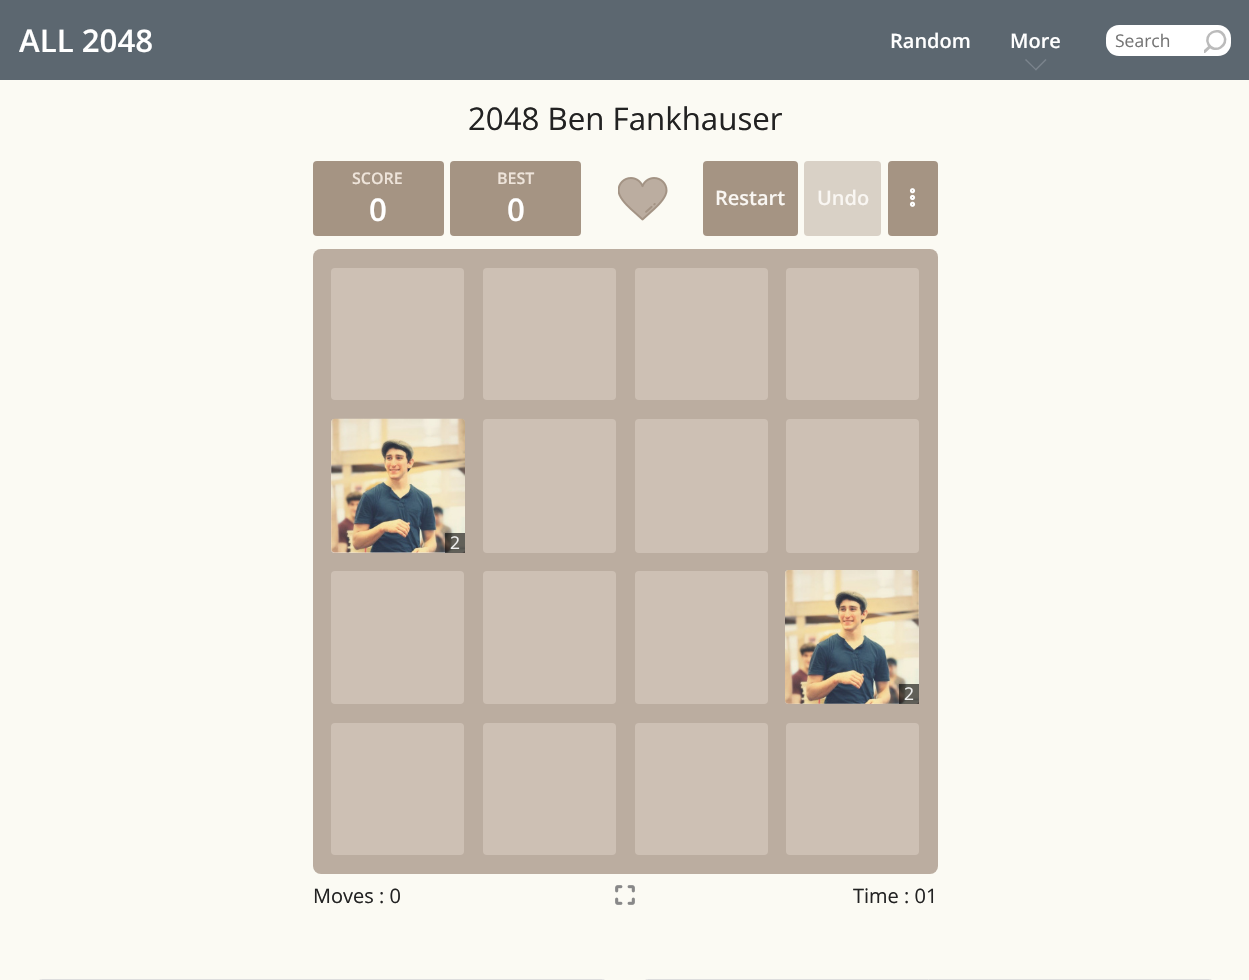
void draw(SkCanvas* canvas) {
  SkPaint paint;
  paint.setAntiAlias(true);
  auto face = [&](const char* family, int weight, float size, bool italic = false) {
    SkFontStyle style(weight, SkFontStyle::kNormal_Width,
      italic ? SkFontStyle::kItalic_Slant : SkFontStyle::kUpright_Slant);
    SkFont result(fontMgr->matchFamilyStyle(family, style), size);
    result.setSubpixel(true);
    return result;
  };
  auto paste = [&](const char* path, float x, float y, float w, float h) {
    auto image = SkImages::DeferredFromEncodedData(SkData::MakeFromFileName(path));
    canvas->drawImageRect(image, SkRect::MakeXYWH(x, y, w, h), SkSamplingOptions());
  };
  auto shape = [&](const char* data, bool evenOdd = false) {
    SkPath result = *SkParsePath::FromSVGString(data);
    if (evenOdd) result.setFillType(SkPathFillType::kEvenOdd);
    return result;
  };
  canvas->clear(0xff5c6770);
  paint.setColor(0xff7b848d);
  canvas->drawPath(shape("M1035 69.5L1045.5 59L1046.5 60L1036 70.5Z"), paint);
  canvas->drawPath(shape("M1025 60L1026 59L1036.5 69.5L1036 70.5Z"), paint);
  paint.setColor(0xffffffff);
  canvas->drawRoundRect(SkRect::MakeXYWH(1106, 25, 125, 31), 13, 13, paint);
  paint.setStroke(true);
  paint.setStrokeWidth(2.5f);
  paint.setColor(0xffbbbbbb);
  canvas->drawPath(shape("M1208.5 44.5C1203 34.5 1218 25.5 1224 35.5C1229.5 45.5 1214.5 54.5 1208.5 44.5Z"), paint);
  canvas->save();
  canvas->clipRect(SkRect::MakeXYWH(1204, 28, 25, 25));
  paint.setStrokeWidth(1.5f);
  canvas->drawPath(shape("M1209 46.5L1210 47.5L1203.5 53.5L1202.5 52.5Z"), paint);
  canvas->restore();
  paint.setStroke(false);
  paint.setColor(0xfffbfaf3);
  canvas->drawRect(SkRect::MakeXYWH(0, 80, 1249, 900), paint);
  paint.setColor(0xffa59483);
  canvas->drawRoundRect(SkRect::MakeXYWH(313, 161, 131, 75), 4, 4, paint);
  canvas->drawRoundRect(SkRect::MakeXYWH(450, 161, 131, 75), 4, 4, paint);
  paste("img/1.png", 618, 177, 50, 44);
  canvas->drawRoundRect(SkRect::MakeXYWH(703, 161, 95, 75), 4, 4, paint);
  paint.setColor(0xffd9d1c6);
  canvas->drawRoundRect(SkRect::MakeXYWH(804, 161, 77, 75), 4, 4, paint);
  paint.setColor(0xffa59483);
  canvas->drawRoundRect(SkRect::MakeXYWH(888, 161, 50, 75), 4, 4, paint);
  paste("img/2.png", 909, 188, 7, 19);
  paint.setColor(0xffbbada0);
  canvas->drawRoundRect(SkRect::MakeXYWH(313, 249, 625, 625), 8, 8, paint);
  paint.setColor(0xffcdc0b4);
  canvas->drawRoundRect(SkRect::MakeXYWH(331, 268, 133, 132), 4, 4, paint);
  canvas->drawRoundRect(SkRect::MakeXYWH(483, 268, 133, 132), 4, 4, paint);
  canvas->drawRoundRect(SkRect::MakeXYWH(635, 268, 133, 132), 4, 4, paint);
  canvas->drawRoundRect(SkRect::MakeXYWH(786, 268, 133, 132), 4, 4, paint);
  canvas->drawRoundRect(SkRect::MakeXYWH(483, 419, 133, 134), 4, 4, paint);
  canvas->drawRoundRect(SkRect::MakeXYWH(635, 419, 133, 134), 4, 4, paint);
  canvas->drawRoundRect(SkRect::MakeXYWH(786, 419, 133, 134), 4, 4, paint);
  canvas->drawRoundRect(SkRect::MakeXYWH(331, 571, 133, 133), 4, 4, paint);
  canvas->drawRoundRect(SkRect::MakeXYWH(483, 571, 133, 133), 4, 4, paint);
  canvas->drawRoundRect(SkRect::MakeXYWH(635, 571, 133, 133), 4, 4, paint);
  canvas->drawRoundRect(SkRect::MakeXYWH(331, 723, 133, 132), 4, 4, paint);
  canvas->drawRoundRect(SkRect::MakeXYWH(483, 723, 133, 132), 4, 4, paint);
  canvas->drawRoundRect(SkRect::MakeXYWH(635, 723, 133, 132), 4, 4, paint);
  canvas->drawRoundRect(SkRect::MakeXYWH(786, 723, 133, 132), 4, 4, paint);
  paint.setColor(0xffeee4da);
  canvas->drawRoundRect(SkRect::MakeXYWH(331, 419, 134, 134), 4, 4, paint);
  paste("img/3.png", 331, 418, 134, 135);
  paint.setColor(0x99000000);
  canvas->drawRect(SkRect::MakeXYWH(445, 533, 20, 20), paint);
  paint.setColor(0xffeee4da);
  canvas->drawRoundRect(SkRect::MakeXYWH(785, 570, 134, 134), 4, 4, paint);
  paste("img/4.png", 785, 570, 134, 134);
  paint.setColor(0x99000000);
  canvas->drawRect(SkRect::MakeXYWH(899, 684, 20, 20), paint);
  paste("img/5.png", 615, 885, 20, 20);
  paint.setStroke(true);
  paint.setStrokeWidth(1);
  paint.setColor(0xffdddddd);
  canvas->drawRoundRect(SkRect::MakeXYWH(38.5f, 979.5f, 567, 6), 4.5f, 4.5f, paint);
  canvas->drawRoundRect(SkRect::MakeXYWH(644.5f, 979.5f, 568, 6), 4.5f, 4.5f, paint);
  auto f0 = face("Open Sans", 600, 31.25f);
  paint.setStroke(false);
  paint.setColor(0xffffffff);
  canvas->drawString("ALL 2048", 19, 52, f0, paint);
  auto f1 = face("Open Sans", 600, 20);
  canvas->drawString("Random", 890, 48, f1, paint);
  canvas->drawString("More", 1010, 48, f1, paint);
  auto f2 = face("Open Sans", 400, 17.5f);
  paint.setColor(0xff757575);
  canvas->drawString("Search", 1115, 47, f2, paint);
  auto f3 = face("Open Sans", 400, 31.25f);
  paint.setColor(0xff222222);
  canvas->drawString("2048 Ben Fankhauser", 468, 130, f3, paint);
  auto f4 = face("Open Sans", 600, 16);
  paint.setColor(0xffeee4da);
  canvas->drawString("SCORE", 352, 184, f4, paint);
  paint.setColor(0xffffffff);
  canvas->drawString("0", 369, 221, f0, paint);
  paint.setColor(0xffeee4da);
  canvas->drawString("BEST", 497, 184, f4, paint);
  paint.setColor(0xffffffff);
  canvas->drawString("0", 507, 221, f0, paint);
  paint.setColor(0xfff9f6f2);
  canvas->drawString("Restart", 715, 205, f1, paint);
  canvas->drawString("Undo", 817, 205, f1, paint);
  paint.setColor(0xffefefee);
  canvas->drawString("2", 450, 549, f2, paint);
  canvas->drawString("2", 904, 700, f2, paint);
  auto f5 = face("Open Sans", 400, 20);
  paint.setColor(0xff222222);
  canvas->drawString("Moves : 0", 313, 903, f5, paint);
  canvas->drawString("Time : 01", 853, 903, f5, paint);
}
